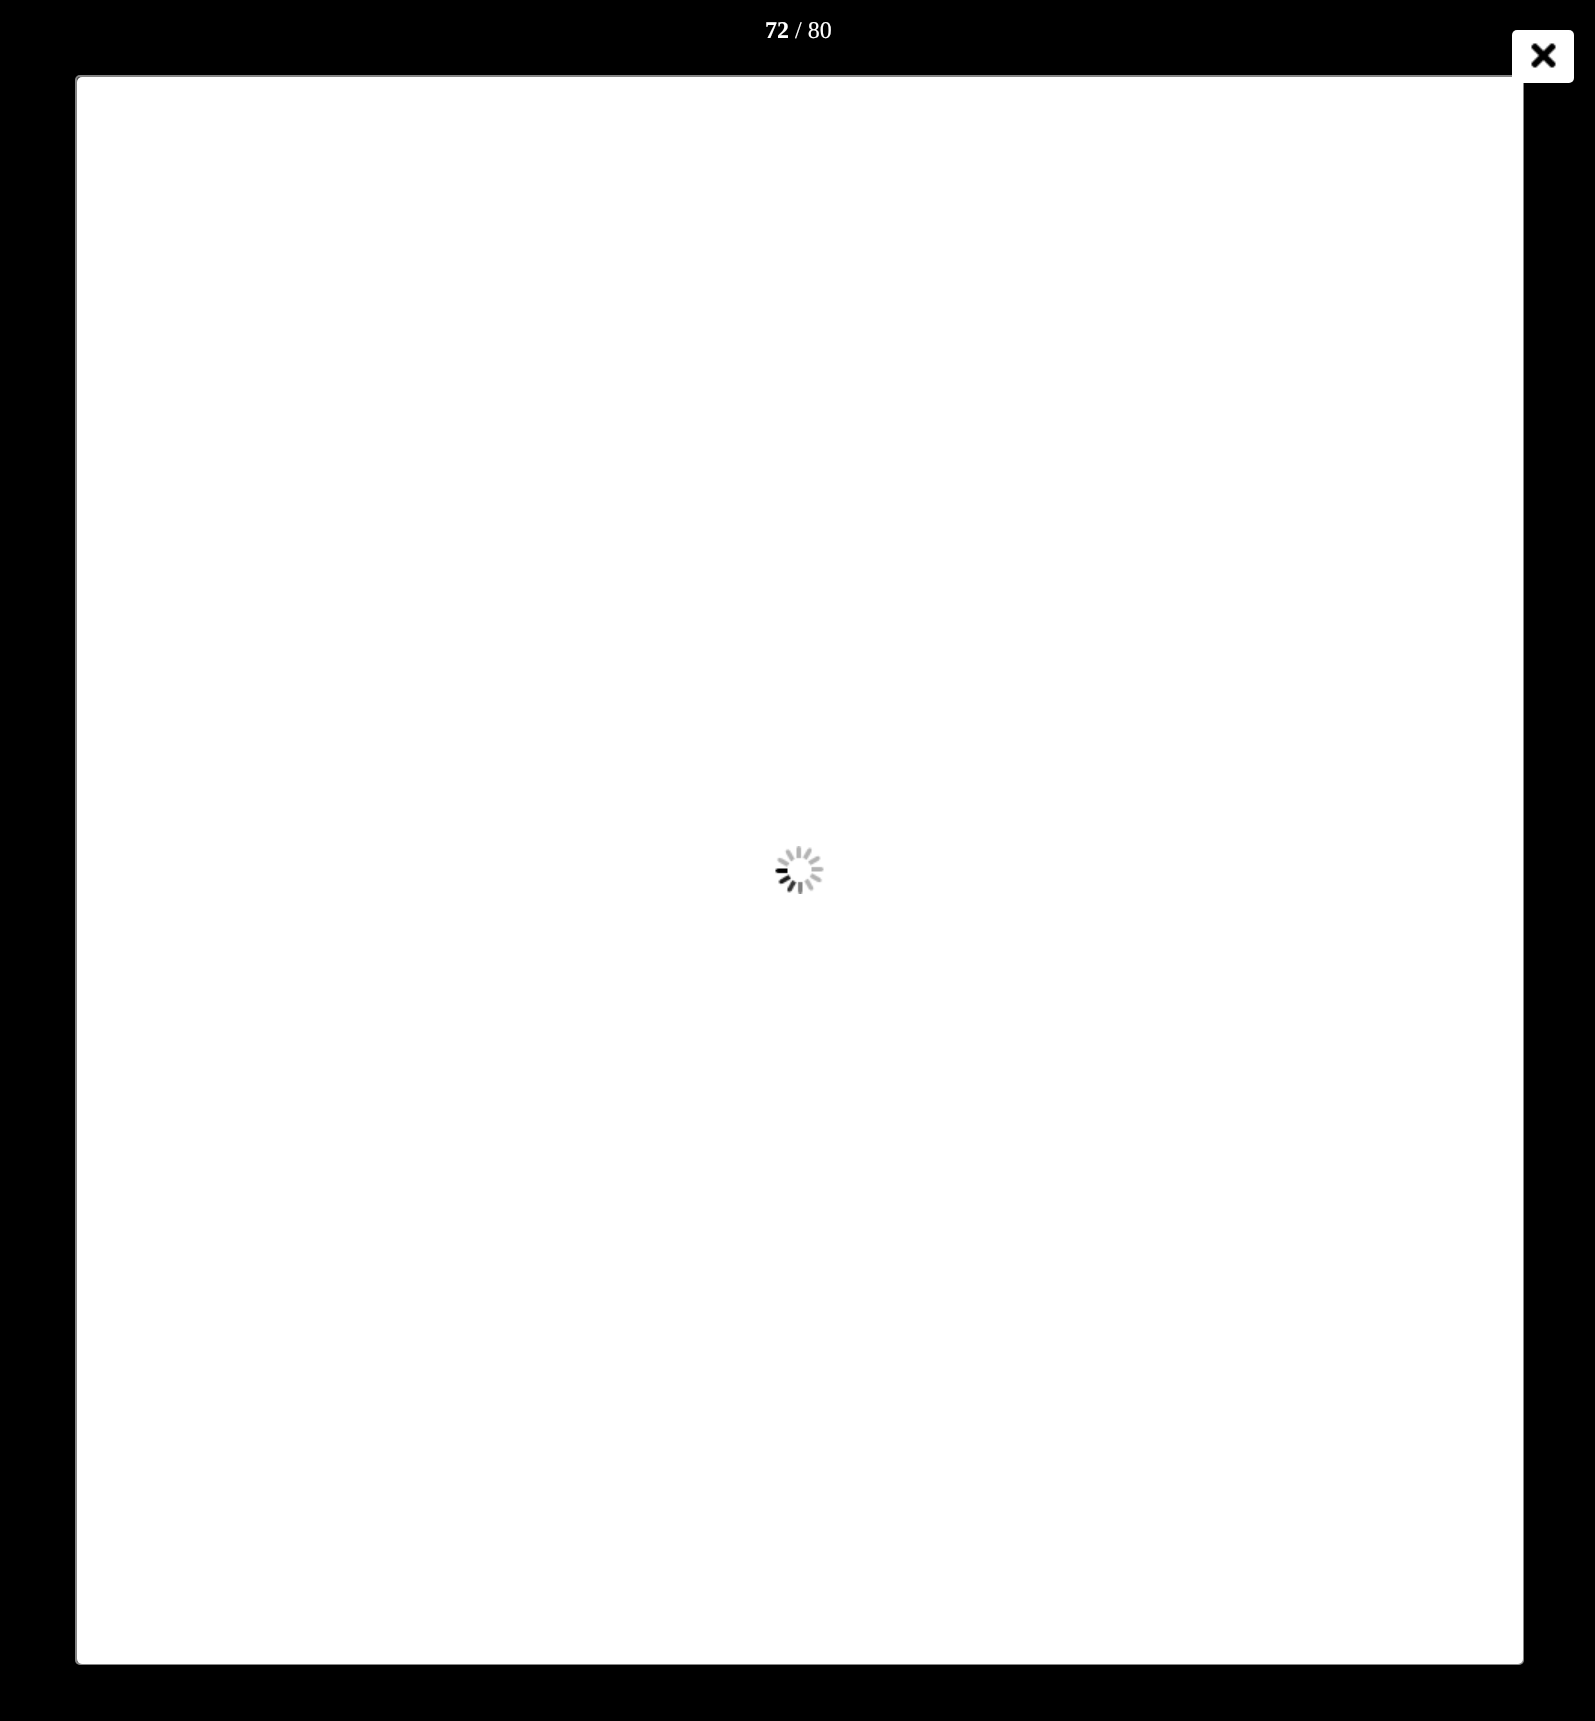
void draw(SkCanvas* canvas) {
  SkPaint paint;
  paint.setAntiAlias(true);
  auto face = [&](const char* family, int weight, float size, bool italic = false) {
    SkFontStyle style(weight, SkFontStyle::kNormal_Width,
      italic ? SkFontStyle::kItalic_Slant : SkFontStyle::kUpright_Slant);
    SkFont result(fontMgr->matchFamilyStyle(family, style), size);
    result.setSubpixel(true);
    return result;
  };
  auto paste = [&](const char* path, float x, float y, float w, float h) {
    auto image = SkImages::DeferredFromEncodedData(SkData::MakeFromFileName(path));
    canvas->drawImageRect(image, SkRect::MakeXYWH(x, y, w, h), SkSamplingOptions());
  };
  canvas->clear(0xff000000);
  paint.setColor(0xff333333);
  canvas->drawRoundRect(SkRect::MakeXYWH(75, 75, 1449, 1590), 5, 5, paint);
  paint.setStroke(true);
  paint.setStrokeWidth(2);
  paint.setColor(0x66ffffff);
  canvas->drawRoundRect(SkRect::MakeXYWH(76, 76, 1447, 1588), 4, 4, paint);
  paint.setStroke(false);
  paint.setColor(0xffffffff);
  canvas->drawRoundRect(SkRect::MakeXYWH(77, 77, 1446, 1587), 5, 5, paint);
  canvas->drawRoundRect(SkRect::MakeXYWH(1512, 30, 62, 53), 5, 5, paint);
  paste("img/1.png", 1531, 43, 25, 25);
  paste("img/2.png", 775, 846, 49, 48);
  auto f0 = face("Liberation Serif", 700, 24);
  canvas->drawString("72", 765, 38, f0, paint);
  auto f1 = face("Liberation Serif", 400, 24);
  canvas->drawString("/ 80", 795, 38, f1, paint);
}
